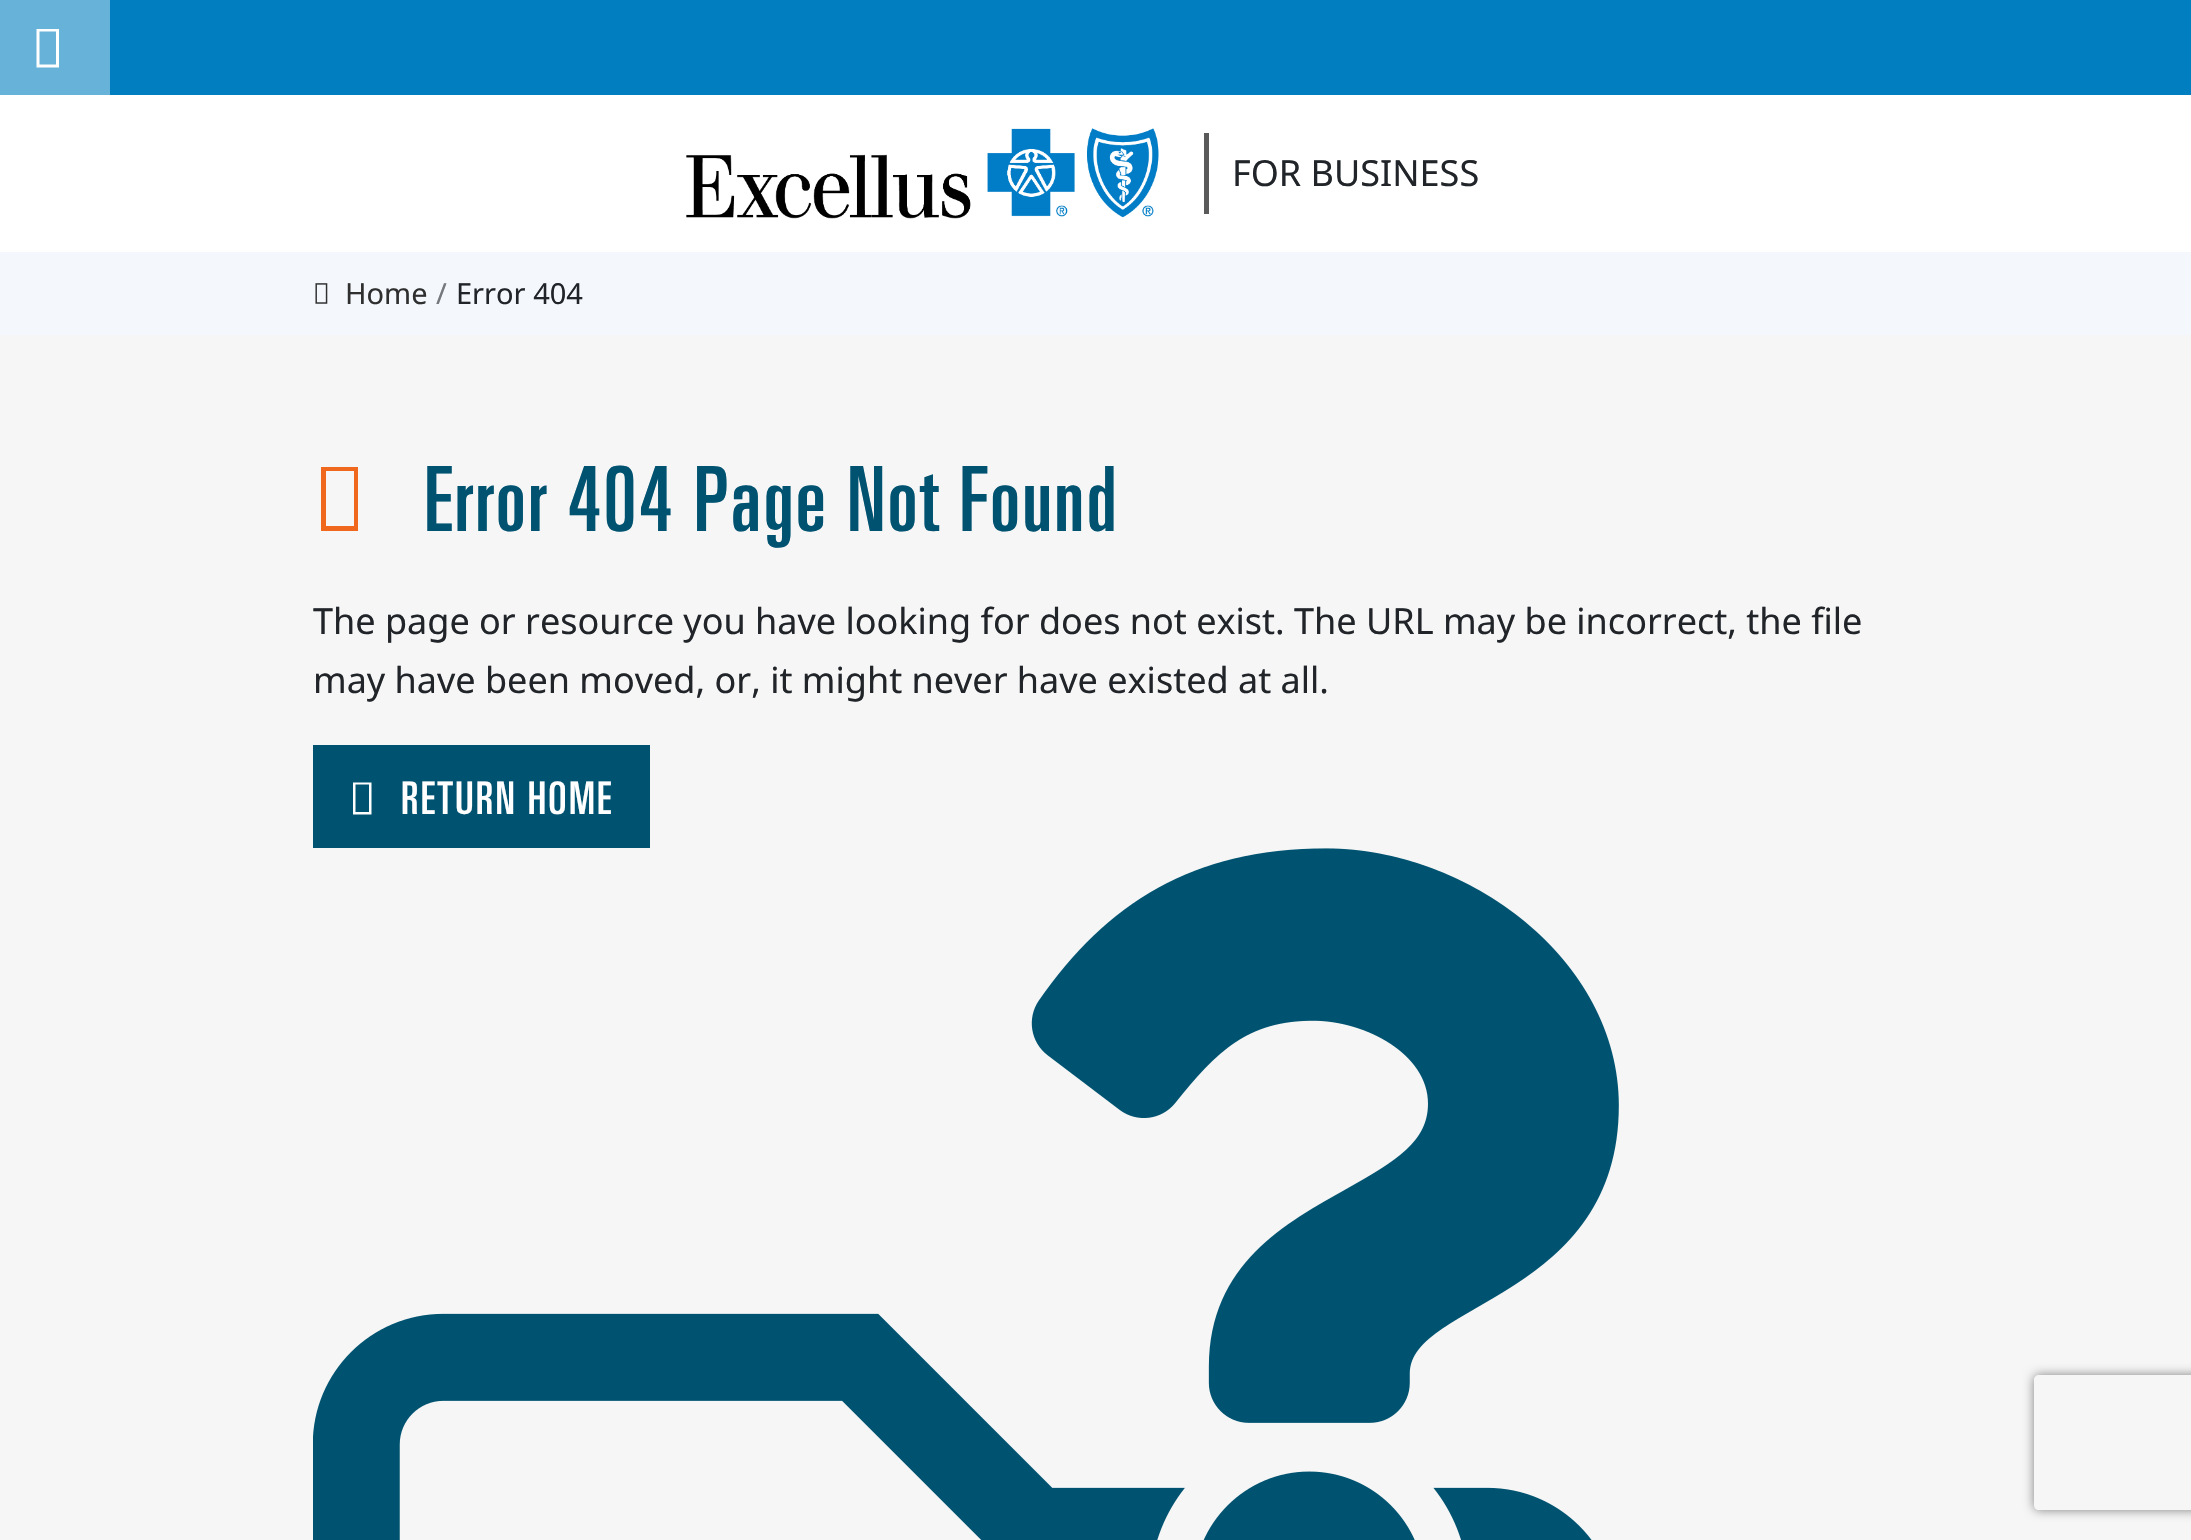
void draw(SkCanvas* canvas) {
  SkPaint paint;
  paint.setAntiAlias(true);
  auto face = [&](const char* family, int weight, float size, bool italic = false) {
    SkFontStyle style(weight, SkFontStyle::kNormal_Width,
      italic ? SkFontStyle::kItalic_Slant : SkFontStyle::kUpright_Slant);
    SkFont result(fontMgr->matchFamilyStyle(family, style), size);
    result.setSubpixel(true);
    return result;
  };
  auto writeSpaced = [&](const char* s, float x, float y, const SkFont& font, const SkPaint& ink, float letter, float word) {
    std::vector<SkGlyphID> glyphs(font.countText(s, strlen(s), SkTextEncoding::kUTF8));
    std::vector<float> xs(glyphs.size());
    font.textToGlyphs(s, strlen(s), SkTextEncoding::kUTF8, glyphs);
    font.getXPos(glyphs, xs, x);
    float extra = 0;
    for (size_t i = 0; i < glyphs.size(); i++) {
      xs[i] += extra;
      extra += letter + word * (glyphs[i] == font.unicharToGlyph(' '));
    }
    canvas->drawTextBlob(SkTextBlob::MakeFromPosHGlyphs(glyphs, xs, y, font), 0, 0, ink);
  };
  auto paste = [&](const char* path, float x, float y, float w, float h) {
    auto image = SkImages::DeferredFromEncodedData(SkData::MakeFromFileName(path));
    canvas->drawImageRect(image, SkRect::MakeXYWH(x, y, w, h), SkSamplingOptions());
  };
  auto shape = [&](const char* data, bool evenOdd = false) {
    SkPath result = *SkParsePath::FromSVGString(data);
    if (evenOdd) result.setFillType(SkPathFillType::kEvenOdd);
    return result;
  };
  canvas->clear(0xfff6f6f6);
  {
    const struct { float x, y, w, h; SkColor color; } items[] = {
      {0, 95, 2191, 157, 0xffffffff},
      {110, 0, 2081, 95, 0xff007ebf},
      {0, 0, 110, 95, 0xff66b2d9},
    };
    for (auto [x, y, w, h, color] : items) {
      paint.setColor(color);
      canvas->drawRect(SkRect::MakeXYWH(x, y, w, h), paint);
    }
  }
  paint.setColor(0xffffffff);
  canvas->drawPath(shape("M36.5 67.5V29H59V67.5ZM39.5 64.5H56V31.5H39.5Z"), paint);
  paste("img/1.png", 686, 128, 473, 91);
  paint.setColor(0xff5a5a5a);
  canvas->drawRect(SkRect::MakeXYWH(1204, 133, 5, 81), paint);
  paint.setColor(0xfff4f8fc);
  canvas->drawRect(SkRect::MakeXYWH(0, 252, 2191, 83), paint);
  paste("img/2.png", 315, 283, 13, 21);
  paint.setColor(0xffef681d);
  canvas->drawPath(shape("M321 531V467H358V531ZM326 526H354V471H326Z"), paint);
  paint.setColor(0xff005370);
  canvas->drawRect(SkRect::MakeXYWH(313, 745, 337, 103), paint);
  paint.setColor(0xffffffff);
  canvas->drawPath(shape("M353 814.5V782.5H371.5V814.5ZM355.5 812H369V784.5H355.5Z"), paint);
  paste("img/3.png", 313, 848, 1306, 692);
  canvas->save();
  canvas->clipPath(shape("M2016 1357H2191V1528H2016ZM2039 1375H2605C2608 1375 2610 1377 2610 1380V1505C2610 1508 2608 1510 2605 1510H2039C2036 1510 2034 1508 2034 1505V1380C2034 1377 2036 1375 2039 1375Z", true), true);
  paint.setColor(0xff808080);
  paint.setMaskFilter(SkMaskFilter::MakeBlur(kNormal_SkBlurStyle, 5.5f));
  canvas->drawRoundRect(SkRect::MakeXYWH(2034, 1375, 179, 135), 5, 5, paint);
  paint.setMaskFilter(nullptr);
  canvas->restore();
  auto f0 = face("Noto Sans", 400, 36);
  paint.setColor(0xff212529);
  canvas->drawString("FOR BUSINESS", 1232, 186, f0, paint);
  auto f1 = face("Noto Sans", 400, 29);
  paint.setColor(0xff2f2f2f);
  canvas->drawString("Home", 345, 304, f1, paint);
  paint.setColor(0xff75797d);
  canvas->drawString("/", 436, 304, f1, paint);
  paint.setColor(0xff212529);
  canvas->drawString("Error 404", 456, 304, f1, paint);
  auto f2 = face("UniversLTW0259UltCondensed", 400, 90);
  paint.setColor(0xff005370);
  writeSpaced("Error 404 Page Not Found", 424, 531, f2, paint, 2.25f, 0);
  paint.setColor(0xff212529);
  canvas->drawString("The page or resource you have looking for does not exist. The URL may be incorrect, the file", 313, 634, f0, paint);
  canvas->drawString("may have been moved, or, it might never have existed at all.", 313, 693, f0, paint);
  auto f3 = face("UniversLTW0259UltCondensed", 400, 45);
  paint.setColor(0xffffffff);
  writeSpaced("RETURN HOME", 401, 814, f3, paint, 2.25f, 0);
}
